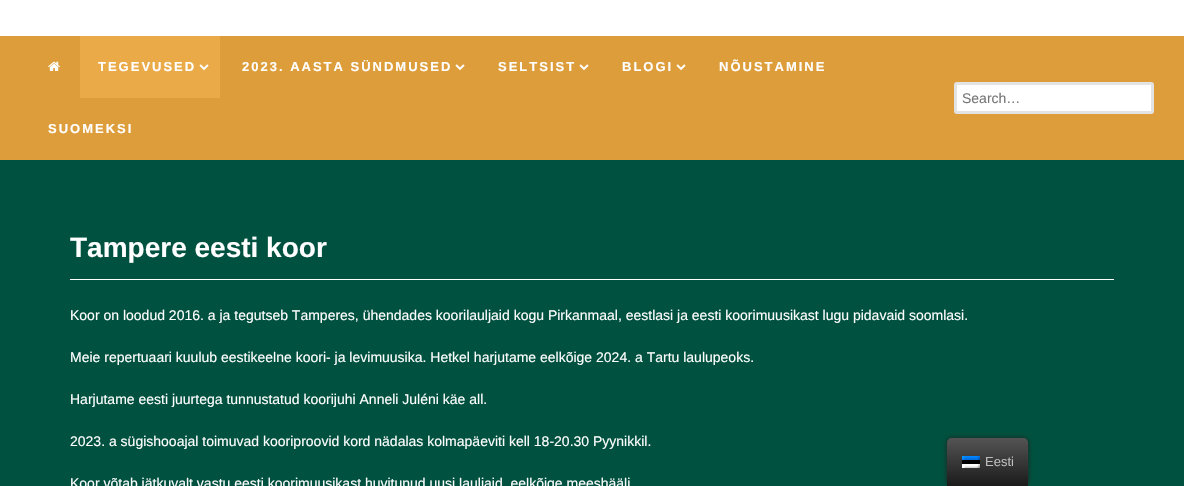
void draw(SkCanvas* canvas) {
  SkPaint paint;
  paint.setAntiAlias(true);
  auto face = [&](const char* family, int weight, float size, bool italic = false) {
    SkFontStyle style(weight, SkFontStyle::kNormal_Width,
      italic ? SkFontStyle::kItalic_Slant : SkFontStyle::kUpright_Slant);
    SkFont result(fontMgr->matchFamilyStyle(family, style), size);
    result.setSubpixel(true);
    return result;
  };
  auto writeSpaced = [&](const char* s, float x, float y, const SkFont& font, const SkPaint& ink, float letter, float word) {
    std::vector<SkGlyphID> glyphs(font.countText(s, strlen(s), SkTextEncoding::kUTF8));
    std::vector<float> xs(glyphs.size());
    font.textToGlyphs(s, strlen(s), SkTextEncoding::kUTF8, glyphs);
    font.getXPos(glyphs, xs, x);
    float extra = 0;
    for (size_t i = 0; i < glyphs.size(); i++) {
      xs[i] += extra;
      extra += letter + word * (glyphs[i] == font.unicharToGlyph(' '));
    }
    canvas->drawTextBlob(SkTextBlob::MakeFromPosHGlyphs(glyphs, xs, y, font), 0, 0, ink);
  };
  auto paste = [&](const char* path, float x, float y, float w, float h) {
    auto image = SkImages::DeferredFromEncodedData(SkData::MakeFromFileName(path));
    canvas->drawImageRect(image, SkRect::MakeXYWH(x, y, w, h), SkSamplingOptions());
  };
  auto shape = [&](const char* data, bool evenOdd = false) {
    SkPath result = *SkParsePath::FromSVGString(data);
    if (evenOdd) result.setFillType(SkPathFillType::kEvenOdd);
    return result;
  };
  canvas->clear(0xffffffff);
  paint.setColor(0xffdd9d3b);
  canvas->drawRect(SkRect::MakeXYWH(0, 36, 1184, 124), paint);
  paste("img/1.png", 48, 61, 12, 10);
  paint.setColor(0xffeaaa48);
  canvas->drawRect(SkRect::MakeXYWH(80, 36, 140, 62), paint);
  paste("img/2.png", 199, 64, 10, 7);
  paste("img/3.png", 455, 64, 10, 7);
  paste("img/3.png", 579, 64, 10, 7);
  paste("img/3.png", 676, 64, 10, 7);
  paint.setColor(0xffffffff);
  canvas->drawRoundRect(SkRect::MakeXYWH(955.5f, 83.5f, 197, 29), 1.5f, 1.5f, paint);
  paint.setStroke(true);
  paint.setStrokeWidth(3);
  paint.setColor(0xffe3e3e3);
  canvas->drawRoundRect(SkRect::MakeXYWH(955.5f, 83.5f, 197, 29), 1.5f, 1.5f, paint);
  paint.setStroke(false);
  paint.setColor(0xff00513f);
  canvas->drawRect(SkRect::MakeXYWH(0, 160, 1184, 326), paint);
  paint.setColor(0xffffffff);
  canvas->drawRect(SkRect::MakeXYWH(70, 279, 1044, 1), paint);
  paint.setColor(0xff212121);
  paint.setMaskFilter(SkMaskFilter::MakeBlur(kNormal_SkBlurStyle, 2.5f));
  canvas->drawRoundRect(SkRect::MakeXYWH(947, 438, 81, 48), 5, 5, paint);
  paint.setMaskFilter(nullptr);
  {
    const SkColor colors[] = {0xff1b1b1b, 0xff545454};
    const float stops[] = {0, 1};
    const SkPoint ends[] = {{988, 486}, {988, 438}};
    paint.setShader(SkGradientShader::MakeLinear(ends, colors, stops, 2, SkTileMode::kClamp));
    paint.setAlpha(255);
  }
  canvas->drawPath(shape("M952 438H1023C1026 438 1028 440 1028 443V486H947V443C947 440 949 438 952 438Z"), paint);
  paste("img/4.png", 962, 456, 18, 12);
  auto f0 = face("Liberation Sans", 700, 13);
  paint.setShader(nullptr);
  paint.setColor(0xffffffff);
  {
    const struct { const char* s; float x, y; } items[] = {
      {"TEGEVUSED", 98, 71},
      {"2023. AASTA SÜNDMUSED", 242, 71},
      {"SELTSIST", 498, 71},
      {"BLOGI", 622, 71},
      {"NÕUSTAMINE", 719, 71},
      {"SUOMEKSI", 48, 133},
    };
    for (auto [s, x, y] : items) {
      writeSpaced(s, x, y, f0, paint, 2, 0);
    }
  }
  auto f1 = face("Liberation Sans", 400, 14);
  paint.setColor(0xff757575);
  canvas->drawString("Search…", 962, 103, f1, paint);
  auto f2 = face("Liberation Sans", 700, 28);
  paint.setColor(0xffffffff);
  canvas->drawString("Tampere eesti koor", 70, 257, f2, paint);
  {
    const struct { const char* s; float x, y; } items[] = {
      {"Koor on loodud 2016. a ja tegutseb Tamperes, ühendades koorilauljaid kogu Pirkanmaal, eestlasi ja eesti koorimuusikast lugu pidavaid soomlasi.", 70, 320},
      {"Meie repertuaari kuulub eestikeelne koori- ja levimuusika. Hetkel harjutame eelkõige 2024. a Tartu laulupeoks.", 70, 362},
      {"Harjutame eesti juurtega tunnustatud koorijuhi Anneli Juléni käe all.", 70, 404},
      {"2023. a sügishooajal toimuvad kooriproovid kord nädalas kolmapäeviti kell 18-20.30 Pyynikkil.", 70, 446},
      {"Koor võtab jätkuvalt vastu eesti koorimuusikast huvitunud uusi lauljaid, eelkõige meeshääli", 70, 488},
    };
    for (auto [s, x, y] : items) {
      canvas->drawString(s, x, y, f1, paint);
    }
  }
  auto f3 = face("Liberation Sans", 400, 13);
  paint.setColor(0xffbdbdbd);
  canvas->drawString("Eesti", 985, 466, f3, paint);
}
